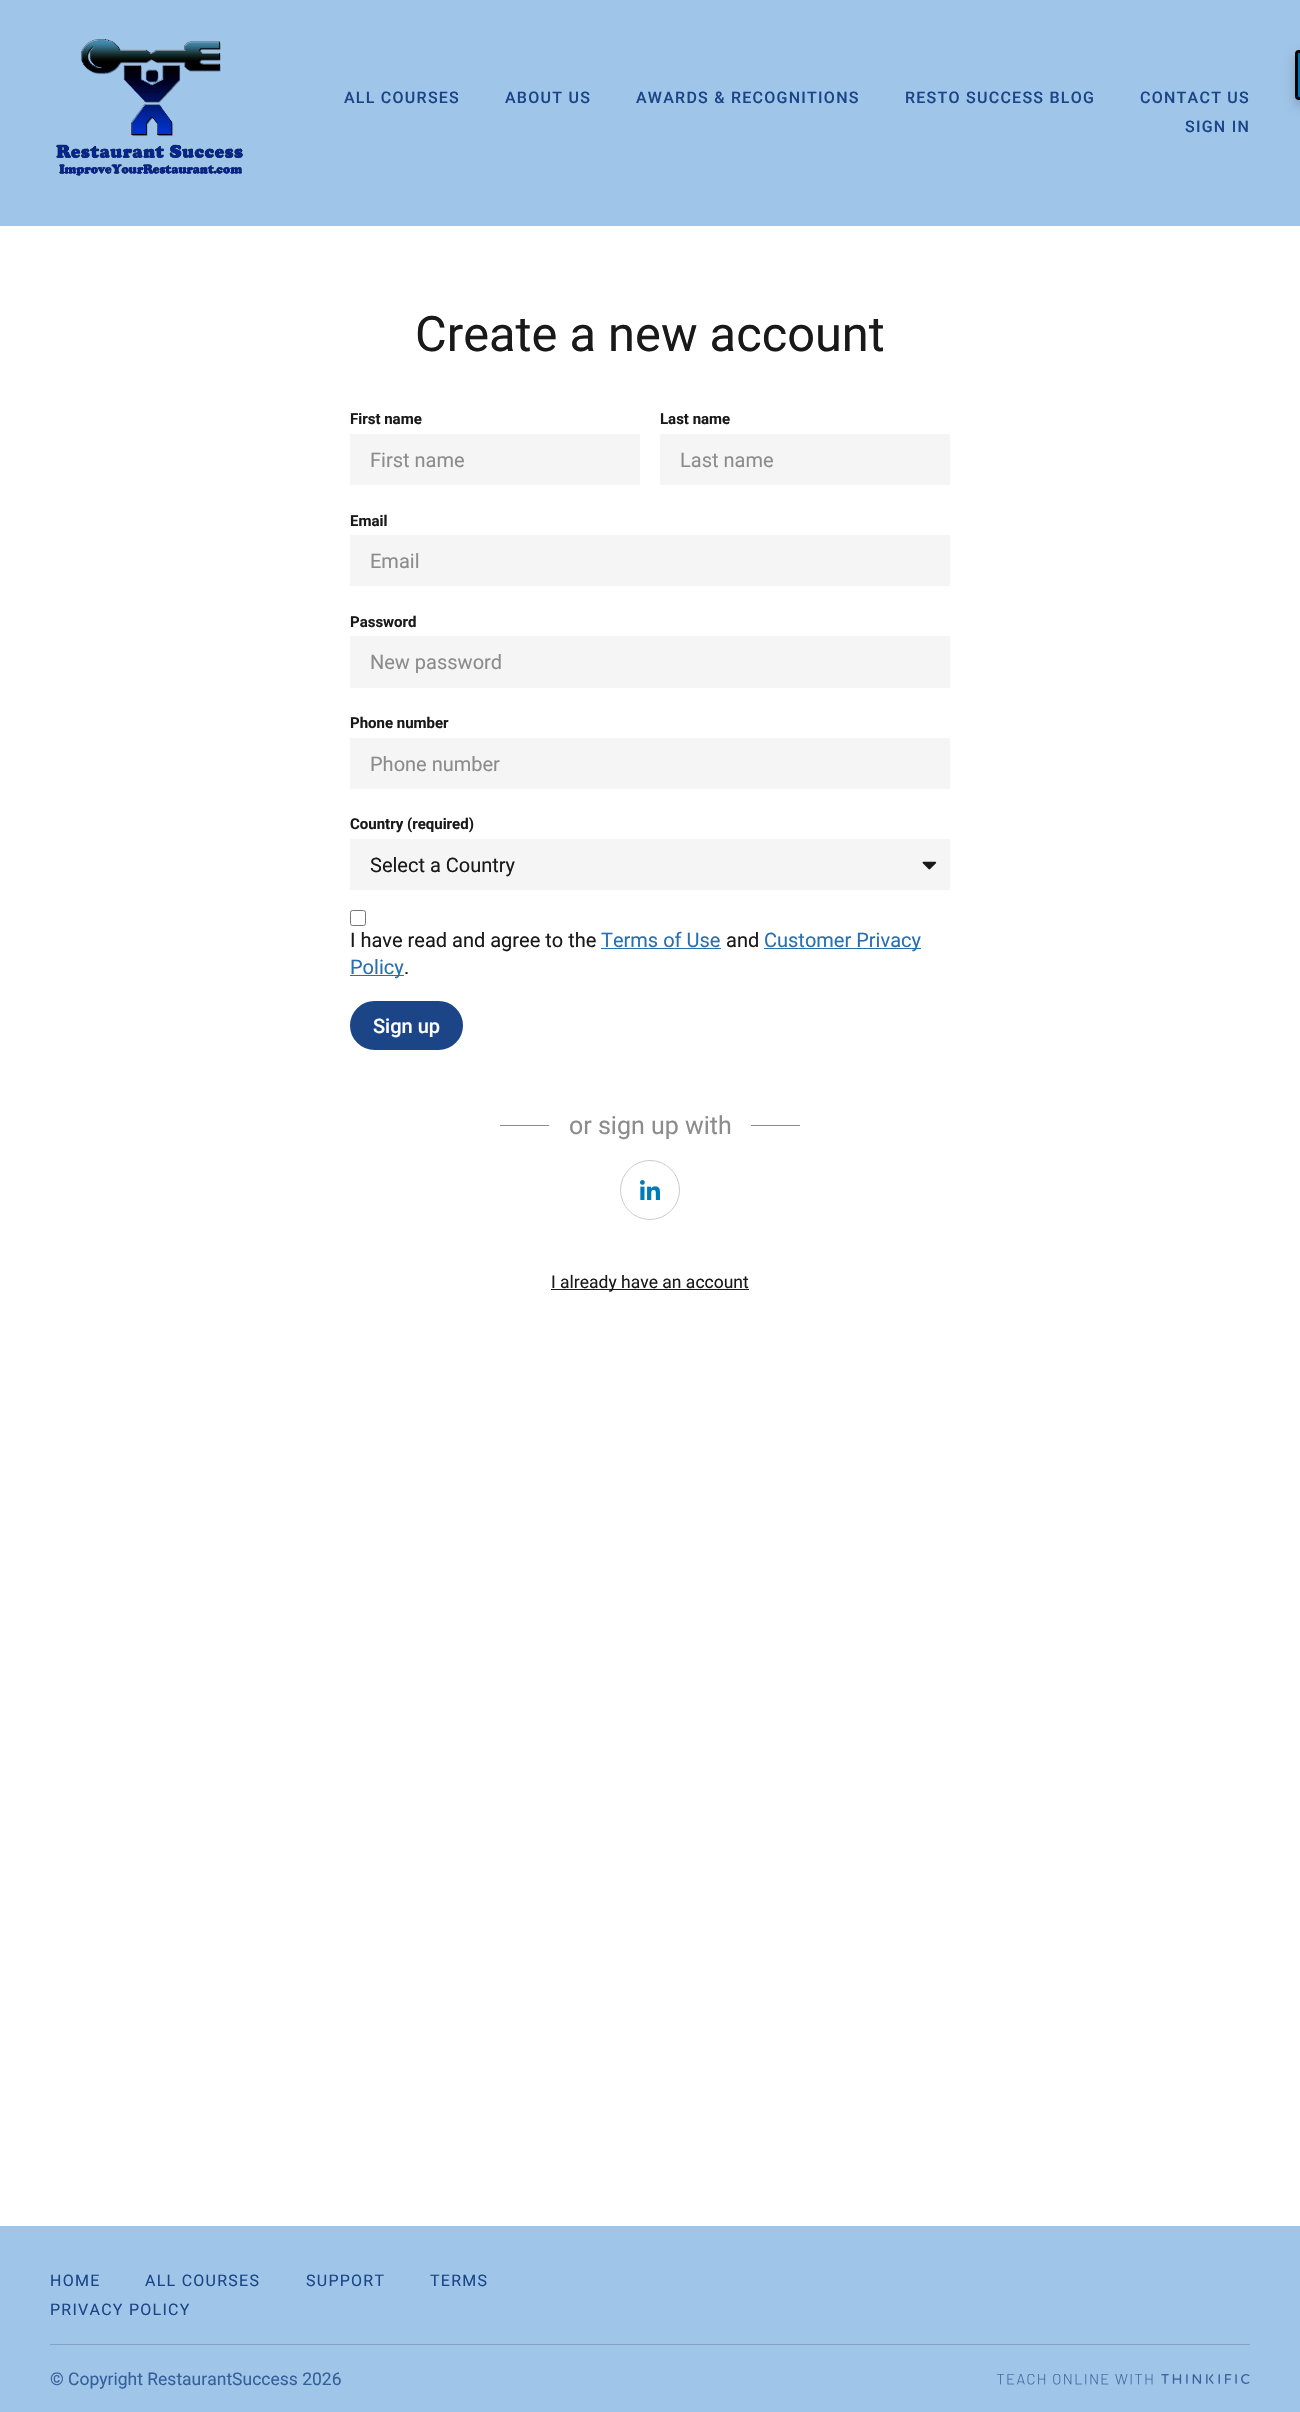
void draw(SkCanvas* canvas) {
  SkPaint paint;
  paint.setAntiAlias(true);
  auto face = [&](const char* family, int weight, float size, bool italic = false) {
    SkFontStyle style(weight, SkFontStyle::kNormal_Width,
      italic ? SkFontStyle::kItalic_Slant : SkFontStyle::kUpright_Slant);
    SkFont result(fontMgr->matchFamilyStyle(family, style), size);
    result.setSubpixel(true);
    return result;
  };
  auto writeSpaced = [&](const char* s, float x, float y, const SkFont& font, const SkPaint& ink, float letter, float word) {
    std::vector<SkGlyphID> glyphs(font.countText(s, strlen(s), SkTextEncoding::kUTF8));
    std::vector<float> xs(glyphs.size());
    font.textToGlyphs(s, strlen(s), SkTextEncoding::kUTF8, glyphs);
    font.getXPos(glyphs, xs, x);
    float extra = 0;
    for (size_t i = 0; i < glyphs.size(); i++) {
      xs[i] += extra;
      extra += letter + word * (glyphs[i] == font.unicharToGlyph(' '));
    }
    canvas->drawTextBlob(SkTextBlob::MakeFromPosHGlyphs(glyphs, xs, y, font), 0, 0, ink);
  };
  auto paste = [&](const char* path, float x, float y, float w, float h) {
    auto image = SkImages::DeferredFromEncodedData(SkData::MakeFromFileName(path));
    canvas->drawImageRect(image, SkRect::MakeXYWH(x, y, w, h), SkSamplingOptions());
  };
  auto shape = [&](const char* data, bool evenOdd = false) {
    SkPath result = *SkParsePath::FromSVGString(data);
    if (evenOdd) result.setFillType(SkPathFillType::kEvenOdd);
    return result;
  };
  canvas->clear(0xffffffff);
  paint.setColor(0xff9fc5e8);
  canvas->drawRect(SkRect::MakeXYWH(0, 0, 1300, 226), paint);
  paste("img/1.png", 56, 39, 187, 137);
  paint.setColor(0x33000000);
  paint.setMaskFilter(SkMaskFilter::MakeBlur(kNormal_SkBlurStyle, 6));
  canvas->drawRoundRect(SkRect::MakeXYWH(1295, 55, 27, 50), 4, 4, paint);
  paint.setMaskFilter(nullptr);
  paint.setColor(0xff0073b7);
  canvas->drawPath(shape("M1299 51.5H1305.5V98.5H1299C1297.5 98.5 1296.5 97.5 1296.5 96V54C1296.5 52.5 1297.5 51.5 1299 51.5Z"), paint);
  paint.setStroke(true);
  paint.setStrokeWidth(3);
  paint.setColor(0xff000000);
  canvas->drawPath(shape("M1299 51.5H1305.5V98.5H1299C1297.5 98.5 1296.5 97.5 1296.5 96V54C1296.5 52.5 1297.5 51.5 1299 51.5Z"), paint);
  paint.setStroke(false);
  {
    const struct { float x, y, w, h; SkColor color; } items[] = {
      {350, 434, 290, 51, 0xfff5f5f5},
      {660, 434, 290, 51, 0xfff5f5f5},
      {350, 535, 600, 51, 0xfff5f5f5},
      {350, 636, 600, 52, 0xfff5f5f5},
      {350, 738, 600, 51, 0xfff5f5f5},
      {350, 839, 600, 51, 0xfff5f5f5},
    };
    for (auto [x, y, w, h, color] : items) {
      paint.setColor(color);
      canvas->drawRect(SkRect::MakeXYWH(x, y, w, h), paint);
    }
  }
  paste("img/2.png", 922, 861, 15, 9);
  paint.setStroke(true);
  paint.setStrokeWidth(1);
  paint.setColor(0xff767676);
  canvas->drawRoundRect(SkRect::MakeXYWH(350.5f, 910.5f, 15, 15), 2, 2, paint);
  paint.setStroke(false);
  {
    const struct { float x, y, w, h; SkColor color; } items[] = {
      {601, 948, 120, 1, 0xff286fb0},
      {764, 948, 157, 1, 0xff286fb0},
      {350, 975, 54, 1, 0xff286fb0},
    };
    for (auto [x, y, w, h, color] : items) {
      paint.setColor(color);
      canvas->drawRect(SkRect::MakeXYWH(x, y, w, h), paint);
    }
  }
  paint.setColor(0xff1c4587);
  canvas->drawRoundRect(SkRect::MakeXYWH(351.5f, 1002.5f, 110, 46), 23, 23, paint);
  paint.setStroke(true);
  paint.setStrokeWidth(3);
  canvas->drawRoundRect(SkRect::MakeXYWH(351.5f, 1002.5f, 110, 46), 23, 23, paint);
  paint.setStroke(false);
  paint.setColor(0xff8c8c8c);
  canvas->drawRect(SkRect::MakeXYWH(500, 1125, 300, 1), paint);
  paint.setColor(0xffffffff);
  canvas->drawRect(SkRect::MakeXYWH(549, 1125, 202, 1), paint);
  paint.setStroke(true);
  paint.setStrokeWidth(1);
  paint.setColor(0xffcacccd);
  canvas->drawCircle(650, 1190, 29.5f, paint);
  paste("img/3.png", 640, 1180, 20, 20);
  paint.setStroke(false);
  {
    const struct { float x, y, w, h; SkColor color; } items[] = {
      {551, 1289, 198, 1, 0xff191919},
      {0, 2226, 1300, 186, 0xff9fc5e8},
      {50, 2344, 1200, 1, 0xff84a3bf},
    };
    for (auto [x, y, w, h, color] : items) {
      paint.setColor(color);
      canvas->drawRect(SkRect::MakeXYWH(x, y, w, h), paint);
    }
  }
  paste("img/4.png", 997, 2374, 253, 11);
  auto f0 = face("Roboto", 500, 16);
  paint.setColor(0xff1c4587);
  {
    const struct { const char* s; float x, y; } items[] = {
      {"ALL COURSES", 344, 103},
      {"ABOUT US", 505, 103},
      {"AWARDS & RECOGNITIONS", 636, 103},
      {"RESTO SUCCESS BLOG", 905, 103},
      {"CONTACT US", 1140, 103},
      {"SIGN IN", 1185, 132},
    };
    for (auto [s, x, y] : items) {
      writeSpaced(s, x, y, f0, paint, 1.25f, 0);
    }
  }
  auto f1 = face("Roboto", 400, 48.75f);
  paint.setColor(0xff191919);
  canvas->drawString("Create a new account", 415, 351, f1, paint);
  auto f2 = face("Roboto", 700, 15);
  canvas->drawString("First name", 350, 424, f2, paint);
  auto f3 = face("Roboto", 400, 20);
  paint.setColor(0xff8c8c8c);
  canvas->drawString("First name", 370, 467, f3, paint);
  paint.setColor(0xff191919);
  canvas->drawString("Last name", 660, 424, f2, paint);
  paint.setColor(0xff8c8c8c);
  canvas->drawString("Last name", 680, 467, f3, paint);
  paint.setColor(0xff191919);
  canvas->drawString("Email", 350, 526, f2, paint);
  paint.setColor(0xff8c8c8c);
  canvas->drawString("Email", 370, 568, f3, paint);
  paint.setColor(0xff191919);
  canvas->drawString("Password", 350, 627, f2, paint);
  paint.setColor(0xff8c8c8c);
  canvas->drawString("New password", 370, 669, f3, paint);
  paint.setColor(0xff191919);
  canvas->drawString("Phone number", 350, 728, f2, paint);
  paint.setColor(0xff8c8c8c);
  canvas->drawString("Phone number", 370, 771, f3, paint);
  paint.setColor(0xff191919);
  canvas->drawString("Country (required)", 350, 829, f2, paint);
  canvas->drawString("Select a Country", 370, 872, f3, paint);
  canvas->drawString("I have read and agree to the", 350, 947, f3, paint);
  paint.setColor(0xff286fb0);
  canvas->drawString("Terms of Use", 601, 947, f3, paint);
  paint.setColor(0xff191919);
  canvas->drawString("and", 726, 947, f3, paint);
  paint.setColor(0xff286fb0);
  canvas->drawString("Customer Privacy", 764, 947, f3, paint);
  canvas->drawString("Policy", 350, 974, f3, paint);
  paint.setColor(0xff191919);
  canvas->drawString(".", 404, 974, f3, paint);
  auto f4 = face("Roboto", 500, 20);
  paint.setColor(0xffffffff);
  canvas->drawString("Sign up", 373, 1033, f4, paint);
  auto f5 = face("Roboto", 400, 25);
  paint.setColor(0xff8c8c8c);
  canvas->drawString("or sign up with", 569, 1134, f5, paint);
  auto f6 = face("Roboto", 400, 17.5f);
  paint.setColor(0xff191919);
  canvas->drawString("I already have an account", 551, 1288, f6, paint);
  auto f7 = face("Roboto", 400, 16);
  paint.setColor(0xff1c4587);
  {
    const struct { const char* s; float x, y; } items[] = {
      {"HOME", 50, 2286},
      {"ALL COURSES", 145, 2286},
      {"SUPPORT", 306, 2286},
      {"TERMS", 430, 2286},
      {"PRIVACY POLICY", 50, 2315},
    };
    for (auto [s, x, y] : items) {
      writeSpaced(s, x, y, f7, paint, 1.25f, 0);
    }
  }
  paint.setColor(0xff365f9a);
  canvas->drawString("© Copyright RestaurantSuccess 2026", 50, 2385, f6, paint);
}
